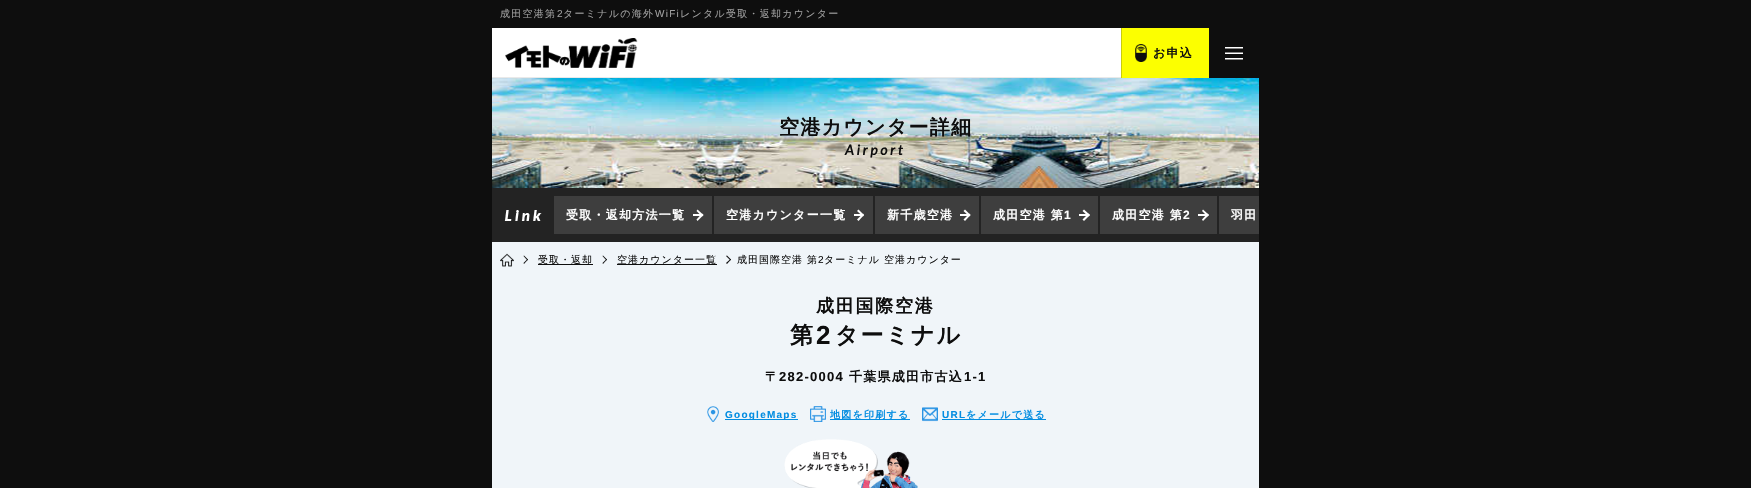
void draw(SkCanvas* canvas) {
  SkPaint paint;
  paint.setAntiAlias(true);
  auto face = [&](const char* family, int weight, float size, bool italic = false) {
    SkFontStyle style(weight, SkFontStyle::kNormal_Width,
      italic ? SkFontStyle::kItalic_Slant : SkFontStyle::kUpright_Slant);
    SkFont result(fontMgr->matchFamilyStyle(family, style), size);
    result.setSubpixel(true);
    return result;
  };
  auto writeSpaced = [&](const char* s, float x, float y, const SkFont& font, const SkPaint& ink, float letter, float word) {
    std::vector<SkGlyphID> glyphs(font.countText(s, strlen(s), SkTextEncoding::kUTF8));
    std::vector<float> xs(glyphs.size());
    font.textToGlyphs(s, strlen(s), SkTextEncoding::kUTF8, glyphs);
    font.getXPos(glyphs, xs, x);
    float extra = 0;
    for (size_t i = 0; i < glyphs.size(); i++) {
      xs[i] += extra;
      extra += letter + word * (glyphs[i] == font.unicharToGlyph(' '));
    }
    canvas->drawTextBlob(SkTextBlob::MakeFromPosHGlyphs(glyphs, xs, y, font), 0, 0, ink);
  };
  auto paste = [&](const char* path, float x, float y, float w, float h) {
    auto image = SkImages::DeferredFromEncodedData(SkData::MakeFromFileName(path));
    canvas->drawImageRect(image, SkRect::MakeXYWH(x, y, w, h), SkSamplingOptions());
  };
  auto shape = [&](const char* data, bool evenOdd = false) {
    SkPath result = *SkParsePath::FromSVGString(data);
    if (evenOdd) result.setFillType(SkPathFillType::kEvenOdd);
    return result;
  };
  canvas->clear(0xff0e0e0e);
  paint.setColor(0xffe9e9e9);
  canvas->drawRect(SkRect::MakeXYWH(492, 77, 629, 1), paint);
  paint.setColor(0xffffffff);
  canvas->drawRect(SkRect::MakeXYWH(492, 28, 629, 49), paint);
  paste("img/1.png", 505, 38, 133, 30);
  paint.setColor(0xfffcff00);
  canvas->drawRect(SkRect::MakeXYWH(1122, 28, 87, 50), paint);
  paste("img/2.png", 1135, 44, 12, 18);
  paint.setColor(0xffcacc0d);
  canvas->drawRect(SkRect::MakeXYWH(1121, 28, 1, 50), paint);
  paste("img/3.png", 1225, 47, 18, 13);
  paste("img/4.png", 492, 78, 767, 110);
  paint.setColor(0xff232323);
  canvas->drawRect(SkRect::MakeXYWH(492, 188, 767, 54), paint);
  paste("img/5.png", 504, 210, 38, 11);
  paint.setColor(0xff3e3e3e);
  canvas->drawRect(SkRect::MakeXYWH(554, 196, 158, 38), paint);
  paint.setColor(0xffffffff);
  canvas->drawRect(SkRect::MakeXYWH(693, 214, 9, 2), paint);
  canvas->drawPath(shape("M697.5 209.5L703.5 215L702 216.5L696.5 211Z"), paint);
  canvas->drawPath(shape("M702 213.5L703.5 215L697.5 221L696.5 219.5Z"), paint);
  paint.setColor(0xff3e3e3e);
  canvas->drawRect(SkRect::MakeXYWH(714, 196, 159, 38), paint);
  paint.setColor(0xffffffff);
  canvas->drawRect(SkRect::MakeXYWH(854, 214, 9, 2), paint);
  canvas->drawPath(shape("M858.5 209.5L864 215L863 216.5L857 211Z"), paint);
  canvas->drawPath(shape("M863 213.5L864 215L858.5 221L857 219.5Z"), paint);
  paint.setColor(0xff3e3e3e);
  canvas->drawRect(SkRect::MakeXYWH(875, 196, 104, 38), paint);
  paint.setColor(0xffffffff);
  canvas->drawRect(SkRect::MakeXYWH(960, 214, 9, 2), paint);
  canvas->drawPath(shape("M965 209.5L970.5 215L969.5 216.5L963.5 211Z"), paint);
  canvas->drawPath(shape("M969.5 213.5L970.5 215L965 221L963.5 219.5Z"), paint);
  paint.setColor(0xff3e3e3e);
  canvas->drawRect(SkRect::MakeXYWH(981, 196, 117, 38), paint);
  paint.setColor(0xffffffff);
  canvas->drawRect(SkRect::MakeXYWH(1079, 214, 9, 2), paint);
  canvas->drawPath(shape("M1084 209.5L1090 215L1088.5 216.5L1082.5 211Z"), paint);
  canvas->drawPath(shape("M1088.5 213.5L1090 215L1084 221L1082.5 219.5Z"), paint);
  paint.setColor(0xff3e3e3e);
  canvas->drawRect(SkRect::MakeXYWH(1100, 196, 117, 38), paint);
  paint.setColor(0xffffffff);
  canvas->drawRect(SkRect::MakeXYWH(1198, 214, 9, 2), paint);
  canvas->drawPath(shape("M1203 209.5L1209 215L1207.5 216.5L1202 211Z"), paint);
  canvas->drawPath(shape("M1207.5 213.5L1209 215L1203 221L1202 219.5Z"), paint);
  paint.setColor(0xff3e3e3e);
  canvas->drawRect(SkRect::MakeXYWH(1219, 196, 40, 38), paint);
  paint.setColor(0xfff0f5f9);
  canvas->drawRect(SkRect::MakeXYWH(492, 242, 767, 246), paint);
  paste("img/6.png", 500, 253, 14, 14);
  paint.setColor(0xff0e0e0e);
  canvas->drawPath(shape("M524 255.5L528 259.5L527.5 260.5L523.5 256Z"), paint);
  canvas->drawPath(shape("M527.5 259L528 259.5L524 264L523.5 263Z"), paint);
  canvas->drawRect(SkRect::MakeXYWH(538, 264, 55, 1), paint);
  canvas->drawPath(shape("M603 255.5L607 259.5L606.5 260.5L602.5 256Z"), paint);
  canvas->drawPath(shape("M606.5 259L607 259.5L603 264L602.5 263Z"), paint);
  canvas->drawRect(SkRect::MakeXYWH(617, 264, 100, 1), paint);
  canvas->drawPath(shape("M727 255.5L731 259.5L730.5 260.5L726 256Z"), paint);
  canvas->drawPath(shape("M730.5 259L731 259.5L727 264L726 263Z"), paint);
  paste("img/7.png", 707, 406, 12, 16);
  paint.setColor(0xff038de1);
  canvas->drawRect(SkRect::MakeXYWH(725, 419, 73, 1), paint);
  paste("img/8.png", 810, 406, 16, 16);
  canvas->drawRect(SkRect::MakeXYWH(830, 419, 80, 1), paint);
  paste("img/9.png", 922, 407, 16, 15);
  canvas->drawRect(SkRect::MakeXYWH(942, 419, 104, 1), paint);
  paste("img/10.png", 784, 439, 134, 49);
  auto f0 = face("WenQuanYi Zen Hei", 500, 10);
  paint.setColor(0xff9f9f9f);
  writeSpaced("成田空港第", 500, 17, f0, paint, 1.25f, 0);
  auto f1 = face("Liberation Sans", 400, 10);
  writeSpaced("2", 557, 17, f1, paint, 1.25f, 0);
  writeSpaced("ターミナルの海外", 563, 17, f0, paint, 1.25f, 0);
  writeSpaced("WiFi", 655, 17, f1, paint, 1.25f, 0);
  writeSpaced("レンタル受取・返却カウンター", 680, 17, f0, paint, 1.25f, 0);
  auto f2 = face("WenQuanYi Zen Hei", 700, 12);
  paint.setColor(0xff0e0e0e);
  writeSpaced("お申込", 1153, 57, f2, paint, 1.25f, 0);
  auto f3 = face("WenQuanYi Zen Hei", 700, 20);
  writeSpaced("空港カウンター詳細", 779, 134, f3, paint, 1.25f, 0);
  auto f4 = face("Lato", 700, 14, true);
  writeSpaced("Airport", 845, 155, f4, paint, 2.75f, 0);
  paint.setColor(0xffffffff);
  {
    const struct { const char* s; float x, y; } items[] = {
      {"受取・返却方法一覧", 566, 219},
      {"空港カウンター一覧", 726, 219},
      {"新千歳空港", 887, 219},
      {"成田空港 第", 993, 219},
    };
    for (auto [s, x, y] : items) {
      writeSpaced(s, x, y, f2, paint, 1.25f, 0);
    }
  }
  auto f5 = face("Liberation Sans", 700, 12);
  writeSpaced("1", 1064, 219, f5, paint, 1.25f, 0);
  writeSpaced("成田空港 第", 1112, 219, f2, paint, 1.25f, 0);
  writeSpaced("2", 1183, 219, f5, paint, 1.25f, 0);
  writeSpaced("羽田", 1231, 219, f2, paint, 1.25f, 0);
  paint.setColor(0xff0e0e0e);
  {
    const struct { const char* s; float x, y; } items[] = {
      {"受取・返却", 538, 263},
      {"空港カウンター一覧", 617, 263},
      {"成田国際空港 第", 737, 263},
    };
    for (auto [s, x, y] : items) {
      writeSpaced(s, x, y, f0, paint, 1, 0);
    }
  }
  writeSpaced("2", 818, 263, f1, paint, 1, 0);
  writeSpaced("ターミナル 空港カウンター", 824, 263, f0, paint, 1, 0);
  auto f6 = face("WenQuanYi Zen Hei", 700, 18);
  writeSpaced("成田国際空港", 816, 312, f6, paint, 1.75f, 0);
  auto f7 = face("WenQuanYi Zen Hei", 700, 23);
  writeSpaced("第", 790, 343, f7, paint, 2, 0);
  auto f8 = face("Liberation Sans", 700, 26);
  writeSpaced("2", 816, 344, f8, paint, 2, 0);
  writeSpaced("ターミナル", 835, 343, f7, paint, 2, 0);
  auto f9 = face("WenQuanYi Zen Hei", 700, 13);
  writeSpaced("〒", 765, 381, f9, paint, 1.25f, 0);
  auto f10 = face("Liberation Sans", 700, 13);
  writeSpaced("282-0004", 779, 381, f10, paint, 1.25f, 0);
  writeSpaced("千葉県成田市古込", 849, 381, f9, paint, 1.25f, 0);
  writeSpaced("1-1", 964, 381, f10, paint, 1.25f, 0);
  auto f11 = face("Liberation Sans", 700, 10);
  paint.setColor(0xff038de1);
  writeSpaced("GoogleMaps", 725, 418, f11, paint, 1.25f, 0);
  auto f12 = face("WenQuanYi Zen Hei", 700, 10);
  writeSpaced("地図を印刷する", 830, 418, f12, paint, 1.25f, 0);
  writeSpaced("URL", 942, 418, f11, paint, 1.25f, 0);
  writeSpaced("をメールで送る", 966, 418, f12, paint, 1.25f, 0);
}
